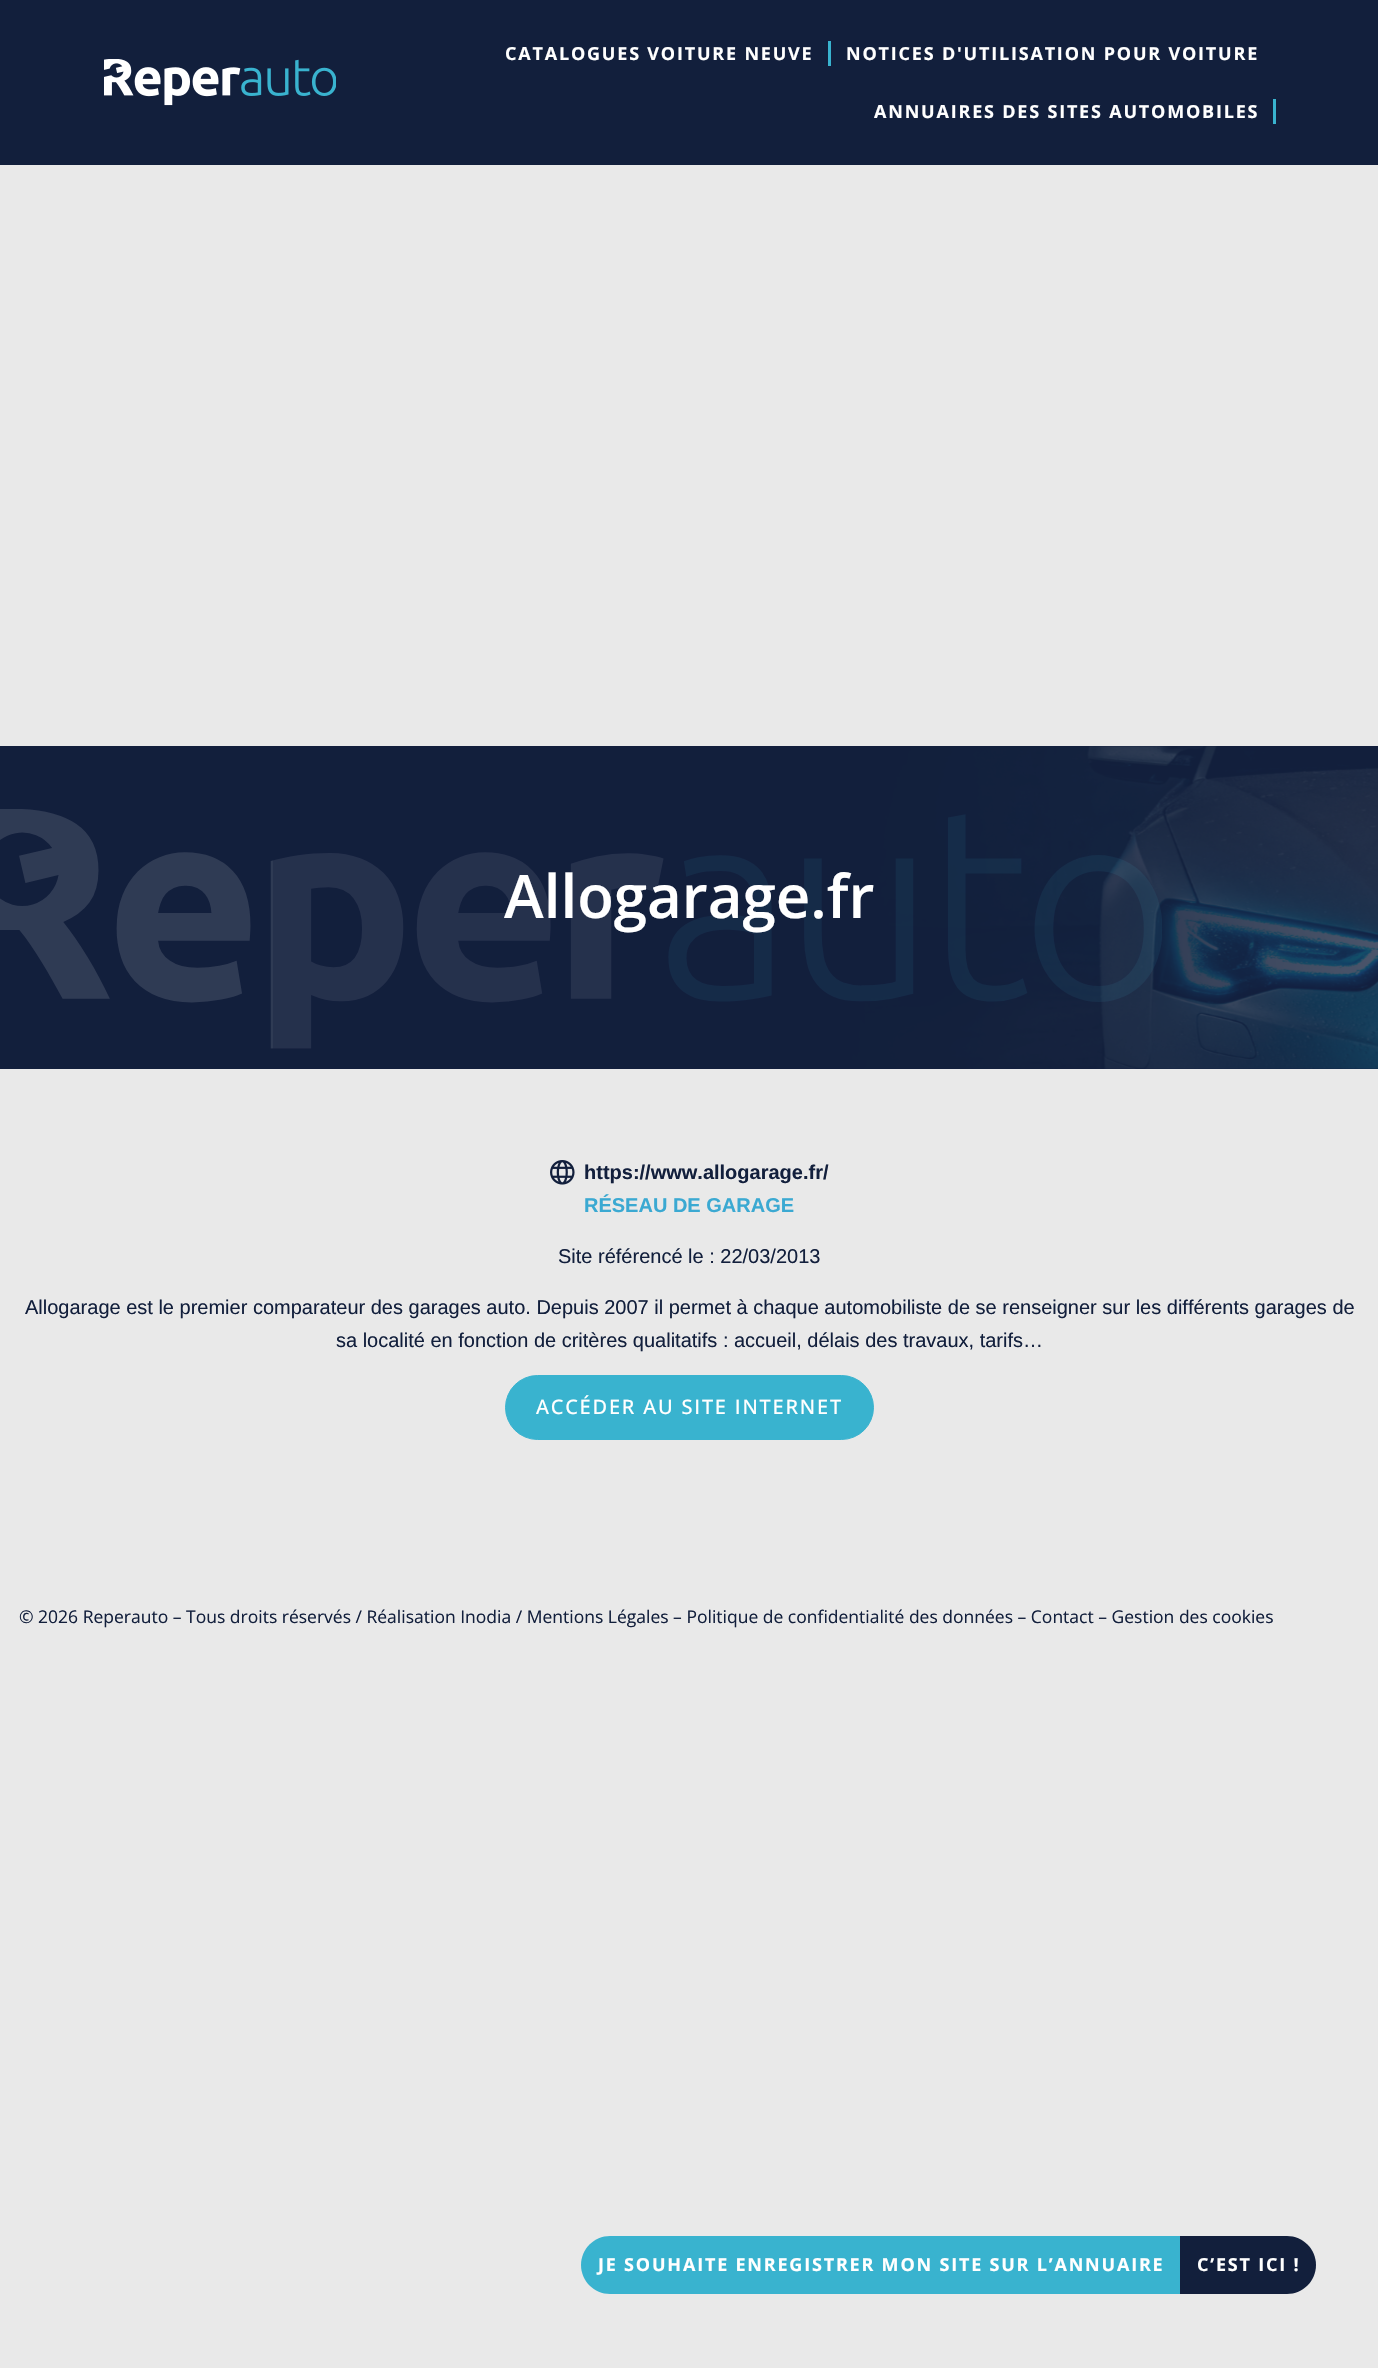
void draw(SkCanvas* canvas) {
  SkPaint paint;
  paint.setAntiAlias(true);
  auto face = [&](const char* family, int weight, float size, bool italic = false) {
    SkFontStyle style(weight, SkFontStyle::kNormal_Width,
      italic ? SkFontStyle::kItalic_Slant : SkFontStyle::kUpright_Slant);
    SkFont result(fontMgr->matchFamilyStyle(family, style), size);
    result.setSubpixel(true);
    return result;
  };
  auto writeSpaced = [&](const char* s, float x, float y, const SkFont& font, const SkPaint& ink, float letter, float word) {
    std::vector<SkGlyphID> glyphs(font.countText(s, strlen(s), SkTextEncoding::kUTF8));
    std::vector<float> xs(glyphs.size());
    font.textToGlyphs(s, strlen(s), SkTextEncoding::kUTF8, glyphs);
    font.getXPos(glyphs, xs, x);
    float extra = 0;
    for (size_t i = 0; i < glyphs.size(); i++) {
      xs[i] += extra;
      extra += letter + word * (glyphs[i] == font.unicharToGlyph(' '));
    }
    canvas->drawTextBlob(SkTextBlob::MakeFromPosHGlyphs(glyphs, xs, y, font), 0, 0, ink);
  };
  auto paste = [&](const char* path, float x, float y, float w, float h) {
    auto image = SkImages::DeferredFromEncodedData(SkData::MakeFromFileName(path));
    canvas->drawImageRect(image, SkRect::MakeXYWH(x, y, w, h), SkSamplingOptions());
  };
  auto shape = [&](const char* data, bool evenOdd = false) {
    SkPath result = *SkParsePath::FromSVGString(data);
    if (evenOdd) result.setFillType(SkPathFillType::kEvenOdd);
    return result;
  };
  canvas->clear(0xffe9e9e9);
  paint.setColor(0xff121f3c);
  canvas->drawRect(SkRect::MakeXYWH(0, 0, 1378, 165), paint);
  paste("img/1.png", 104, 59, 232, 47);
  paint.setColor(0xff39b3cf);
  canvas->drawRect(SkRect::MakeXYWH(828, 41, 3, 25), paint);
  canvas->drawRect(SkRect::MakeXYWH(1273, 99, 3, 25), paint);
  canvas->drawPath(shape("M610 2236H1180V2294H610C594 2294 581 2281 581 2265C581 2249 594 2236 610 2236Z"), paint);
  paint.setColor(0xff121f3c);
  canvas->drawPath(shape("M1180 2236H1287C1303 2236 1316 2249 1316 2265C1316 2281 1303 2294 1287 2294H1180Z"), paint);
  canvas->drawRect(SkRect::MakeXYWH(0, 746, 1378, 323), paint);
  paste("img/3.png", 0, 809, 1162, 240);
  paste("img/2.png", 273, 746, 1105, 323);
  paste("img/4.png", 550, 1160, 25, 25);
  paint.setColor(0xff39b3cf);
  canvas->drawRoundRect(SkRect::MakeXYWH(505.5f, 1375.5f, 368, 64), 32, 32, paint);
  paint.setStroke(true);
  paint.setStrokeWidth(1);
  canvas->drawRoundRect(SkRect::MakeXYWH(505.5f, 1375.5f, 368, 64), 32, 32, paint);
  auto f0 = face("Open Sans", 700, 18);
  paint.setStroke(false);
  paint.setColor(0xffffffff);
  {
    const struct { const char* s; float x, y; } items[] = {
      {"CATALOGUES VOITURE NEUVE", 505, 60},
      {"NOTICES D'UTILISATION POUR VOITURE", 846, 60},
      {"ANNUAIRES DES SITES AUTOMOBILES", 874, 118},
      {"JE SOUHAITE ENREGISTRER MON SITE SUR L’ANNUAIRE", 598, 2271},
      {"C’EST ICI !", 1197, 2271},
    };
    for (auto [s, x, y] : items) {
      writeSpaced(s, x, y, f0, paint, 1.8f, 0);
    }
  }
  auto f1 = face("Open Sans", 600, 60);
  canvas->drawString("Allogarage.fr", 504, 918, f1, paint);
  auto f2 = face("Liberation Sans", 700, 20);
  paint.setColor(0xff121f3c);
  canvas->drawString("https://www.allogarage.fr/", 584, 1179, f2, paint);
  paint.setColor(0xff3ba9d2);
  canvas->drawString("RÉSEAU DE GARAGE", 584, 1212, f2, paint);
  auto f3 = face("Liberation Sans", 400, 20);
  paint.setColor(0xff121f3c);
  {
    const struct { const char* s; float x, y; } items[] = {
      {"Site référencé le : 22/03/2013", 558, 1263},
      {"Allogarage est le premier comparateur des garages auto. Depuis 2007 il permet à chaque automobiliste de se renseigner sur les différents garages de", 25, 1314},
      {"sa localité en fonction de critères qualitatifs : accueil, délais des travaux, tarifs…", 336, 1347},
    };
    for (auto [s, x, y] : items) {
      canvas->drawString(s, x, y, f3, paint);
    }
  }
  auto f4 = face("Open Sans", 500, 20);
  paint.setColor(0xffffffff);
  writeSpaced("ACCÉDER AU SITE INTERNET", 536, 1414, f4, paint, 1.8f, 0);
  auto f5 = face("Open Sans", 400, 17.5f);
  paint.setColor(0xff121f3c);
  canvas->drawString("© 2026 Reperauto – Tous droits réservés / Réalisation Inodia / Mentions Légales – Politique de confidentialité des données – Contact – Gestion des cookies", 19, 1623, f5, paint);
}
